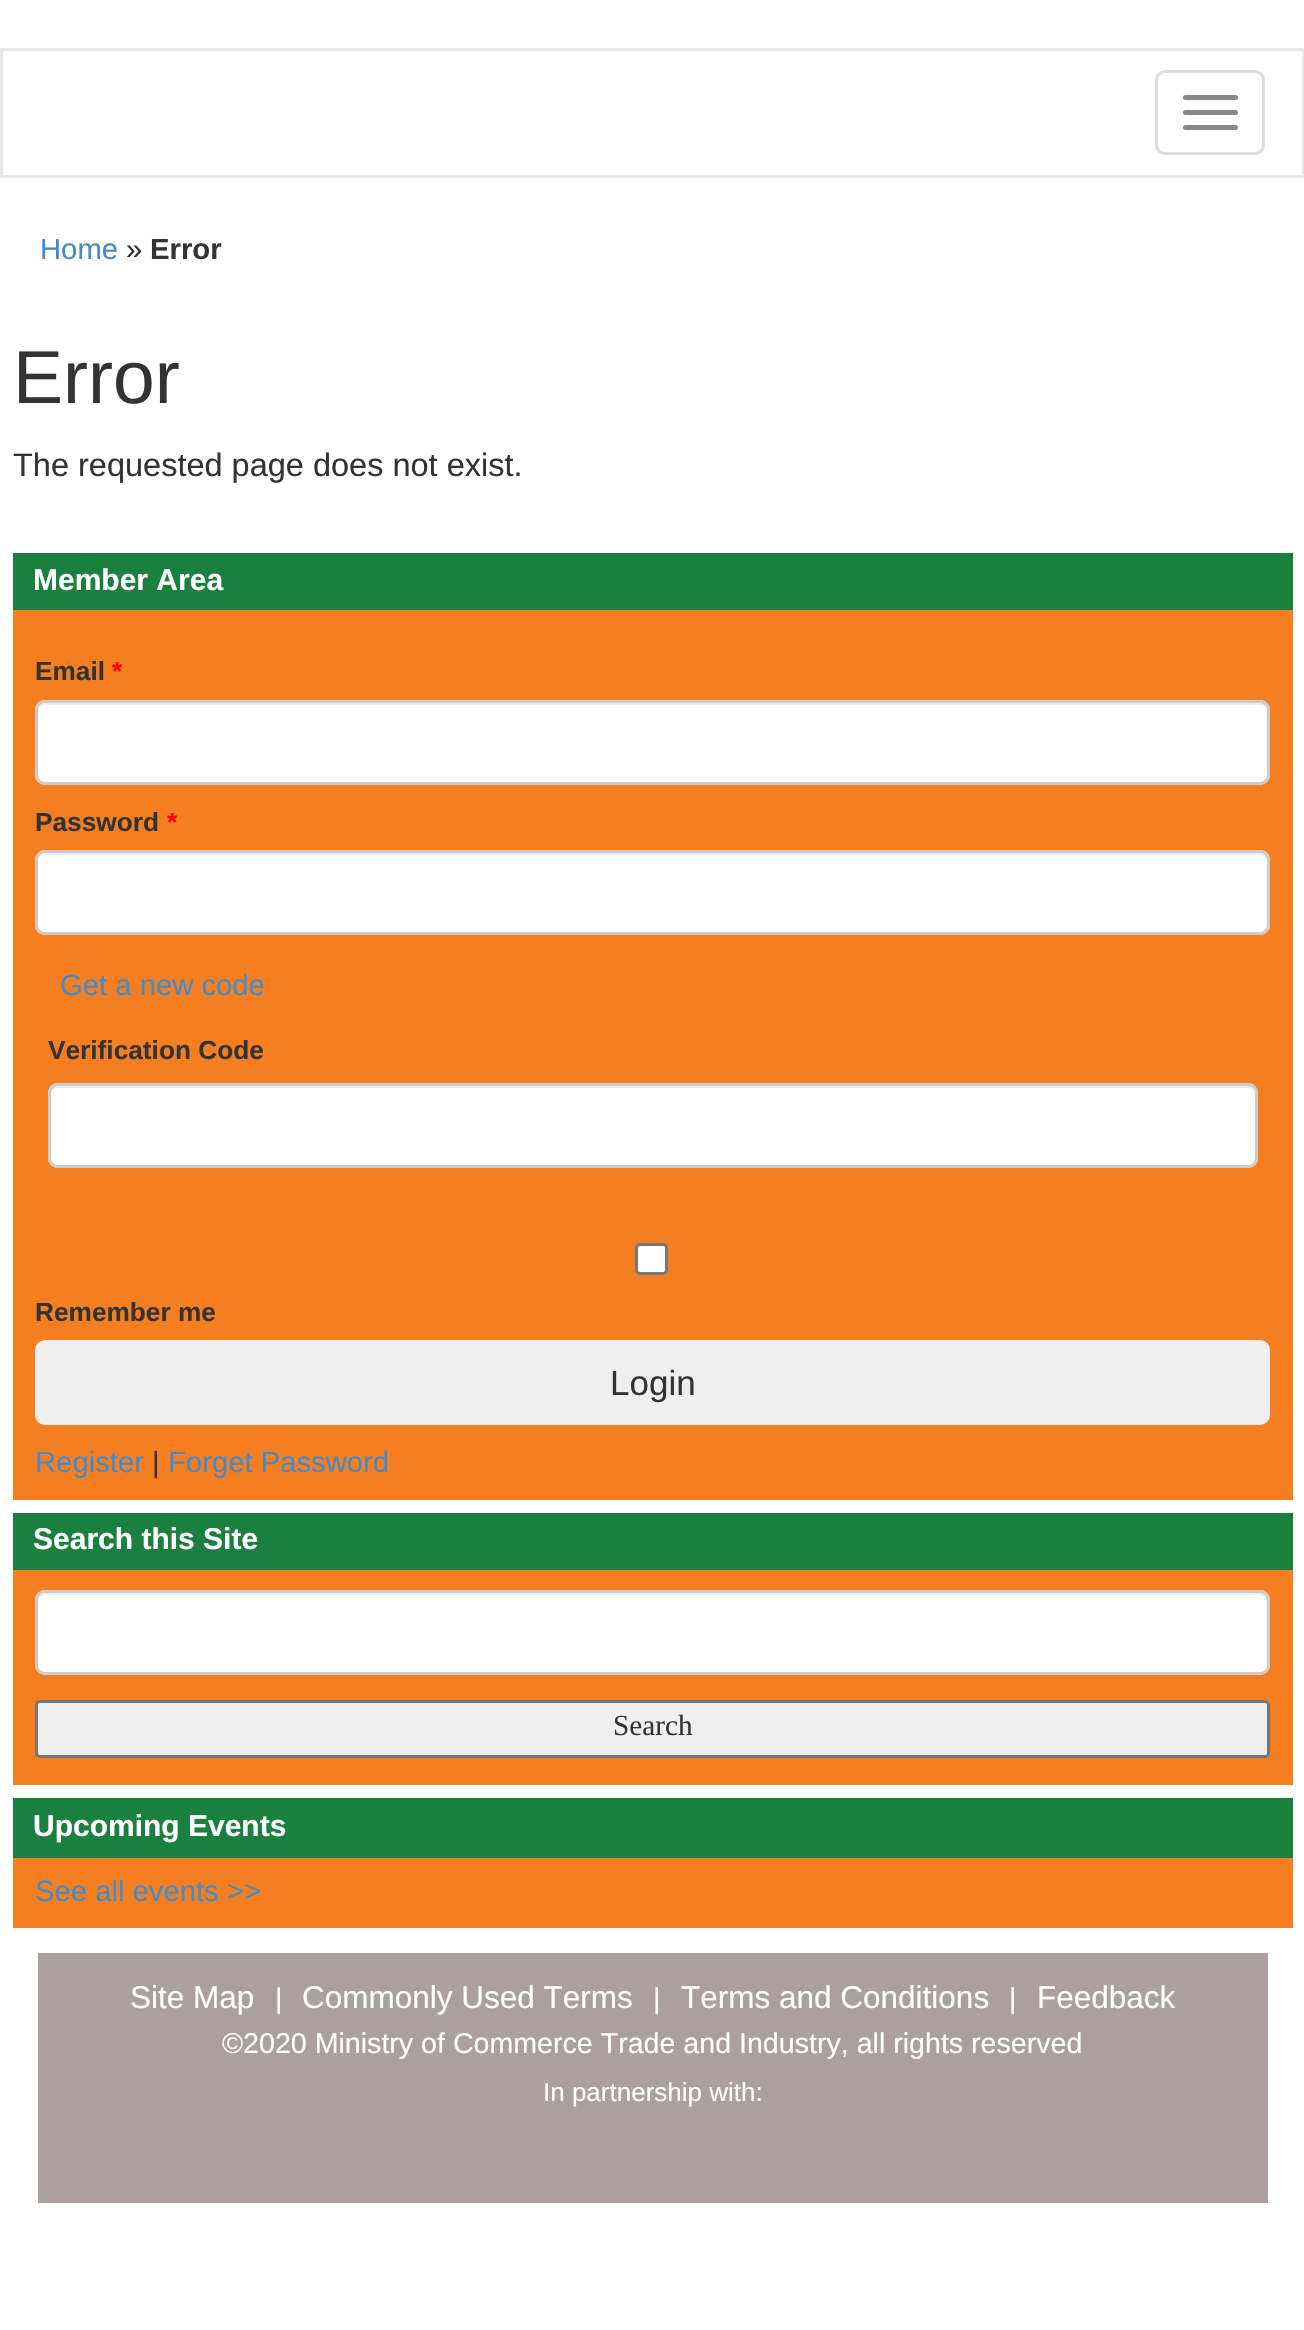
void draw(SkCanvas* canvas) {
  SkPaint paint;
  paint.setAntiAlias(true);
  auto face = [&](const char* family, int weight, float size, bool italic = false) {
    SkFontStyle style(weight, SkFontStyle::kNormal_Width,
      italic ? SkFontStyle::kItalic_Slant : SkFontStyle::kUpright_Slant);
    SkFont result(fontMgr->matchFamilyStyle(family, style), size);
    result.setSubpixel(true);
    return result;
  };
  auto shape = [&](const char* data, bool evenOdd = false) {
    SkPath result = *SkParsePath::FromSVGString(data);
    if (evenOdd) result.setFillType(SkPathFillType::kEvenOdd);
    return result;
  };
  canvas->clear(0xffffffff);
  paint.setStroke(true);
  paint.setStrokeWidth(3);
  paint.setColor(0xffe7e7e7);
  canvas->drawRect(SkRect::MakeXYWH(1.5f, 49.5f, 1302, 127), paint);
  paint.setColor(0xffdddddd);
  canvas->drawRoundRect(SkRect::MakeXYWH(1156.5f, 71.5f, 107, 82), 8.5f, 8.5f, paint);
  paint.setStroke(false);
  paint.setColor(0xff888888);
  canvas->drawRoundRect(SkRect::MakeXYWH(1183, 95, 55, 5), 2.5f, 2.5f, paint);
  canvas->drawRoundRect(SkRect::MakeXYWH(1183, 110, 55, 5), 2.5f, 2.5f, paint);
  canvas->drawRoundRect(SkRect::MakeXYWH(1183, 125, 55, 5), 2.5f, 2.5f, paint);
  paint.setColor(0xff1a803f);
  canvas->drawRect(SkRect::MakeXYWH(13, 553, 1280, 57), paint);
  paint.setColor(0xfff57e20);
  canvas->drawRect(SkRect::MakeXYWH(13, 610, 1280, 890), paint);
  paint.setColor(0xffffffff);
  canvas->drawRoundRect(SkRect::MakeXYWH(35, 700, 1235, 85), 10, 10, paint);
  paint.setColor(0xffececec);
  canvas->drawPath(shape("M45 705H1260C1264 705 1268 708 1268 712C1268 707 1265 703 1260 703H46C41 703 38 707 38 712C38 708 41 705 45 705Z"), paint);
  paint.setStroke(true);
  paint.setColor(0xffcccccc);
  canvas->drawRoundRect(SkRect::MakeXYWH(36.5f, 701.5f, 1232, 82), 8.5f, 8.5f, paint);
  paint.setStroke(false);
  paint.setColor(0xffffffff);
  canvas->drawRoundRect(SkRect::MakeXYWH(35, 850, 1235, 85), 10, 10, paint);
  paint.setColor(0xffececec);
  canvas->drawPath(shape("M45 855H1260C1264 855 1268 858 1268 862C1268 857 1265 853 1260 853H46C41 853 38 857 38 862C38 858 41 855 45 855Z"), paint);
  paint.setStroke(true);
  paint.setColor(0xffcccccc);
  canvas->drawRoundRect(SkRect::MakeXYWH(36.5f, 851.5f, 1232, 82), 8.5f, 8.5f, paint);
  paint.setStroke(false);
  paint.setColor(0xffffffff);
  canvas->drawRoundRect(SkRect::MakeXYWH(48, 1083, 1210, 85), 10, 10, paint);
  paint.setColor(0xffececec);
  canvas->drawPath(shape("M58 1088H1248C1252 1088 1255 1091 1255 1095V1093C1255 1089 1251 1085 1247 1085H58C54 1085 50 1089 50 1093V1095C50 1091 53 1088 58 1088Z"), paint);
  paint.setStroke(true);
  paint.setColor(0xffcccccc);
  canvas->drawRoundRect(SkRect::MakeXYWH(49.5f, 1084.5f, 1207, 82), 8.5f, 8.5f, paint);
  paint.setStroke(false);
  paint.setColor(0xffffffff);
  canvas->drawRoundRect(SkRect::MakeXYWH(636.5f, 1244.5f, 30, 29), 3.5f, 3.5f, paint);
  paint.setStroke(true);
  paint.setColor(0xff767676);
  canvas->drawRoundRect(SkRect::MakeXYWH(636.5f, 1244.5f, 30, 29), 3.5f, 3.5f, paint);
  paint.setStroke(false);
  paint.setColor(0xffefefef);
  canvas->drawRoundRect(SkRect::MakeXYWH(35, 1340, 1235, 85), 10, 10, paint);
  paint.setColor(0xff1a803f);
  canvas->drawRect(SkRect::MakeXYWH(13, 1513, 1280, 57), paint);
  paint.setColor(0xfff57e20);
  canvas->drawRect(SkRect::MakeXYWH(13, 1570, 1280, 215), paint);
  paint.setColor(0xffffffff);
  canvas->drawRoundRect(SkRect::MakeXYWH(35, 1590, 1235, 85), 10, 10, paint);
  paint.setColor(0xffececec);
  canvas->drawPath(shape("M45 1595H1260C1264 1595 1268 1598 1268 1602C1268 1597 1265 1593 1260 1593H46C41 1593 38 1597 38 1602C38 1598 41 1595 45 1595Z"), paint);
  paint.setStroke(true);
  paint.setColor(0xffcccccc);
  canvas->drawRoundRect(SkRect::MakeXYWH(36.5f, 1591.5f, 1232, 82), 8.5f, 8.5f, paint);
  paint.setStroke(false);
  paint.setColor(0xffefefef);
  canvas->drawRoundRect(SkRect::MakeXYWH(36.5f, 1701.5f, 1232, 55), 3.5f, 3.5f, paint);
  paint.setStroke(true);
  paint.setColor(0xff767676);
  canvas->drawRoundRect(SkRect::MakeXYWH(36.5f, 1701.5f, 1232, 55), 3.5f, 3.5f, paint);
  paint.setStroke(false);
  {
    const struct { float x, y, w, h; SkColor color; } items[] = {
      {13, 1798, 1280, 60, 0xff1a803f},
      {13, 1858, 1280, 70, 0xfff57e20},
      {38, 1953, 1230, 250, 0xffab9f9f},
    };
    for (auto [x, y, w, h, color] : items) {
      paint.setColor(color);
      canvas->drawRect(SkRect::MakeXYWH(x, y, w, h), paint);
    }
  }
  auto f0 = face("Liberation Sans", 400, 29.25f);
  paint.setColor(0xff428bca);
  canvas->drawString("Home", 40, 259, f0, paint);
  paint.setColor(0xff333333);
  canvas->drawString("»", 126, 259, f0, paint);
  auto f1 = face("Liberation Sans", 700, 29.25f);
  canvas->drawString("Error", 150, 259, f1, paint);
  auto f2 = face("Liberation Sans", 400, 75);
  canvas->drawString("Error", 13, 403, f2, paint);
  auto f3 = face("Liberation Sans", 400, 32.5f);
  canvas->drawString("The requested page does not exist.", 13, 476, f3, paint);
  auto f4 = face("Liberation Sans", 700, 30);
  paint.setColor(0xffffffff);
  canvas->drawString("Member Area", 33, 590, f4, paint);
  auto f5 = face("Liberation Sans", 700, 26.25f);
  paint.setColor(0xff333333);
  canvas->drawString("Email", 35, 680, f5, paint);
  paint.setColor(0xffff0000);
  canvas->drawString("*", 112, 680, f5, paint);
  paint.setColor(0xff333333);
  canvas->drawString("Password", 35, 831, f5, paint);
  paint.setColor(0xffff0000);
  canvas->drawString("*", 167, 831, f5, paint);
  paint.setColor(0xff428bca);
  canvas->drawString("Get a new code", 60, 995, f0, paint);
  paint.setColor(0xff333333);
  canvas->drawString("Verification Code", 48, 1059, f5, paint);
  canvas->drawString("Remember me", 35, 1321, f5, paint);
  auto f6 = face("Liberation Sans", 400, 35);
  canvas->drawString("Login", 610, 1395, f6, paint);
  paint.setColor(0xff428bca);
  canvas->drawString("Register", 35, 1472, f0, paint);
  paint.setColor(0xff333333);
  canvas->drawString("|", 152, 1472, f0, paint);
  paint.setColor(0xff428bca);
  canvas->drawString("Forget Password", 168, 1472, f0, paint);
  paint.setColor(0xffffffff);
  canvas->drawString("Search this Site", 33, 1549, f4, paint);
  auto f7 = face("Liberation Serif", 400, 29.25f);
  paint.setColor(0xff333333);
  canvas->drawString("Search", 613, 1735, f7, paint);
  paint.setColor(0xffffffff);
  canvas->drawString("Upcoming Events", 33, 1836, f4, paint);
  paint.setColor(0xff428bca);
  canvas->drawString("See all events >>", 35, 1901, f0, paint);
  auto f8 = face("Liberation Sans", 400, 31.5f);
  paint.setColor(0xffffffff);
  canvas->drawString("Site Map", 130, 2008, f8, paint);
  auto f9 = face("Liberation Sans", 400, 28.6f);
  canvas->drawString("|", 275, 2008, f9, paint);
  canvas->drawString("Commonly Used Terms", 302, 2008, f8, paint);
  canvas->drawString("|", 653, 2008, f9, paint);
  canvas->drawString("Terms and Conditions", 681, 2008, f8, paint);
  canvas->drawString("|", 1009, 2008, f9, paint);
  canvas->drawString("Feedback", 1037, 2008, f8, paint);
  canvas->drawString("©2020 Ministry of Commerce Trade and Industry, all rights reserved", 222, 2053, f9, paint);
  auto f10 = face("Liberation Sans", 400, 26);
  canvas->drawString("In partnership with:", 543, 2101, f10, paint);
}
